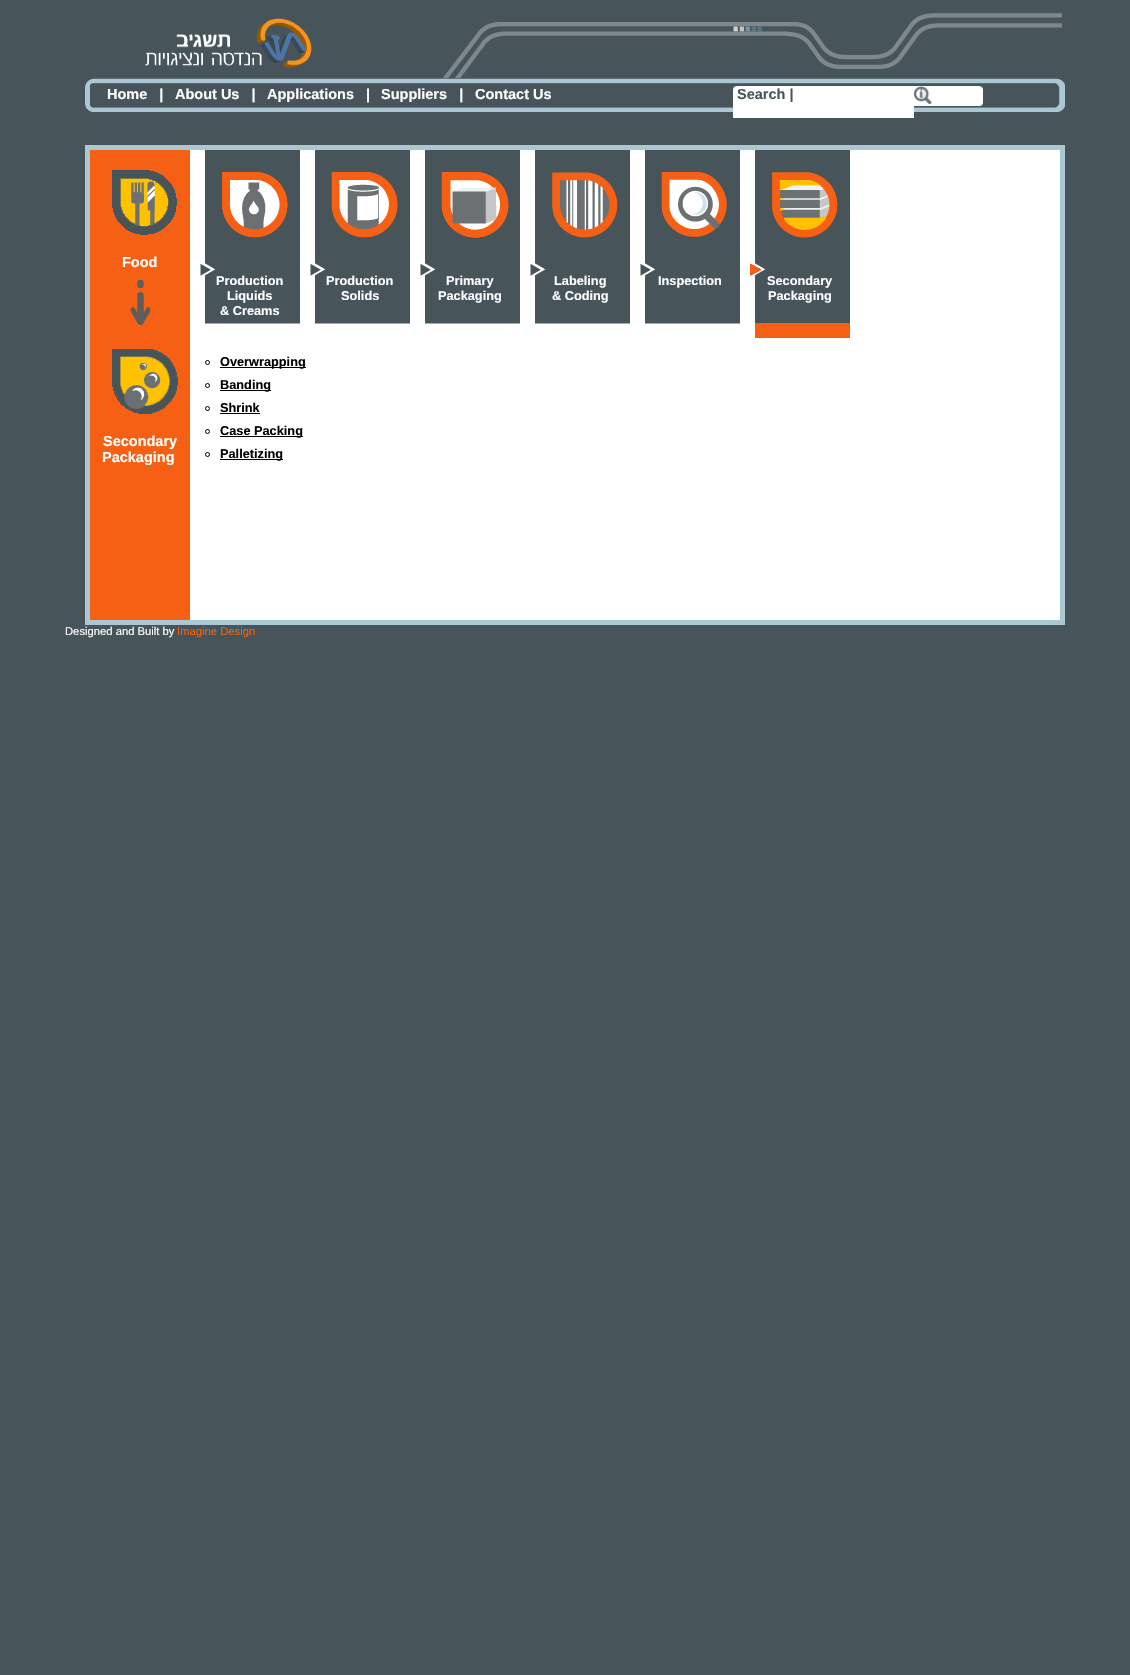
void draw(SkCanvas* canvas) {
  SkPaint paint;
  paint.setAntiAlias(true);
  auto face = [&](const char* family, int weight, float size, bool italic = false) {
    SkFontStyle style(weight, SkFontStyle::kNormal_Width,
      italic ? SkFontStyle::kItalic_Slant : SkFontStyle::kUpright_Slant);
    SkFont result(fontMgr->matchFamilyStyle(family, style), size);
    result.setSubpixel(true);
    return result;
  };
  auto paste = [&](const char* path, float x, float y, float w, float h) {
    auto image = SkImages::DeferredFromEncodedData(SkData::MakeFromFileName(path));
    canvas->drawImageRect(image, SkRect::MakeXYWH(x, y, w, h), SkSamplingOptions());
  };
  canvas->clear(0xff47555b);
  paste("img/1.png", 145, 18, 167, 50);
  paste("img/2.png", 443, 13, 619, 65);
  paste("img/3.png", 85, 78, 980, 34);
  paint.setColor(0xffffffff);
  canvas->drawRect(SkRect::MakeXYWH(737, 86, 242, 20), paint);
  paste("img/4.png", 979, 86, 4, 20);
  paste("img/5.png", 733, 86, 4, 16);
  paste("img/6.png", 914, 86, 18, 18);
  canvas->drawRect(SkRect::MakeXYWH(190, 150, 870, 470), paint);
  paint.setColor(0xfff66014);
  canvas->drawRect(SkRect::MakeXYWH(90, 150, 100, 470), paint);
  paint.setStroke(true);
  paint.setStrokeWidth(5);
  paint.setColor(0xffabc7d3);
  canvas->drawRect(SkRect::MakeXYWH(87.5f, 147.5f, 975, 475), paint);
  paste("img/7.png", 112, 170, 65, 65);
  paste("img/8.png", 130, 280, 21, 45);
  paste("img/9.png", 112, 349, 66, 65);
  paste("img/10.png", 200, 150, 100, 174);
  paste("img/11.png", 310, 150, 100, 174);
  paste("img/12.png", 420, 150, 100, 174);
  paste("img/13.png", 530, 150, 100, 174);
  paste("img/14.png", 640, 150, 100, 174);
  paste("img/15.png", 750, 150, 100, 188);
  paint.setStrokeWidth(1);
  paint.setColor(0xff000000);
  canvas->drawCircle(207.5f, 362.5f, 2, paint);
  paint.setStroke(false);
  canvas->drawRect(SkRect::MakeXYWH(220, 367, 86, 1), paint);
  paint.setStroke(true);
  canvas->drawCircle(207.5f, 385.5f, 2, paint);
  paint.setStroke(false);
  canvas->drawRect(SkRect::MakeXYWH(220, 390, 51, 1), paint);
  paint.setStroke(true);
  canvas->drawCircle(207.5f, 408.5f, 2, paint);
  paint.setStroke(false);
  canvas->drawRect(SkRect::MakeXYWH(220, 413, 40, 1), paint);
  paint.setStroke(true);
  canvas->drawCircle(207.5f, 431.5f, 2, paint);
  paint.setStroke(false);
  canvas->drawRect(SkRect::MakeXYWH(220, 436, 83, 1), paint);
  paint.setStroke(true);
  canvas->drawCircle(207.5f, 454.5f, 2, paint);
  paint.setStroke(false);
  canvas->drawRect(SkRect::MakeXYWH(220, 459, 63, 1), paint);
  auto f0 = face("Liberation Sans", 700, 14.5f);
  paint.setColor(0xffffffff);
  {
    const struct { const char* s; float x, y; } items[] = {
      {"Home   |", 107, 99},
      {"About Us   |", 175, 99},
      {"Applications   |", 267, 99},
      {"Suppliers   |", 381, 99},
      {"Contact Us", 475, 99},
    };
    for (auto [s, x, y] : items) {
      canvas->drawString(s, x, y, f0, paint);
    }
  }
  paint.setColor(0xff47555b);
  canvas->drawString("Search |", 737, 99, f0, paint);
  paint.setColor(0xffffffff);
  canvas->drawRect(SkRect::MakeXYWH(733, 102, 181, 16), paint);
  {
    const struct { const char* s; float x, y; } items[] = {
      {"Food", 122, 267},
      {"Secondary", 103, 446},
      {"Packaging", 102, 462},
    };
    for (auto [s, x, y] : items) {
      canvas->drawString(s, x, y, f0, paint);
    }
  }
  auto f1 = face("Liberation Sans", 700, 12.75f);
  {
    const struct { const char* s; float x, y; } items[] = {
      {"Production", 216, 285},
      {"Liquids", 227, 300},
      {"& Creams", 220, 315},
      {"Production", 326, 285},
      {"Solids", 341, 300},
      {"Primary", 446, 285},
      {"Packaging", 438, 300},
      {"Labeling", 554, 285},
      {"& Coding", 552, 300},
      {"Inspection", 658, 285},
      {"Secondary", 767, 285},
      {"Packaging", 768, 300},
    };
    for (auto [s, x, y] : items) {
      canvas->drawString(s, x, y, f1, paint);
    }
  }
  paint.setColor(0xff000000);
  {
    const struct { const char* s; float x, y; } items[] = {
      {"Overwrapping", 220, 366},
      {"Banding", 220, 389},
      {"Shrink", 220, 412},
      {"Case Packing", 220, 435},
      {"Palletizing", 220, 458},
    };
    for (auto [s, x, y] : items) {
      canvas->drawString(s, x, y, f1, paint);
    }
  }
  auto f2 = face("Liberation Sans", 400, 11.25f);
  paint.setColor(0xffffffff);
  canvas->drawString("Designed and Built by", 65, 635, f2, paint);
  paint.setColor(0xfff66014);
  canvas->drawString("Imagine Design", 177, 635, f2, paint);
}
